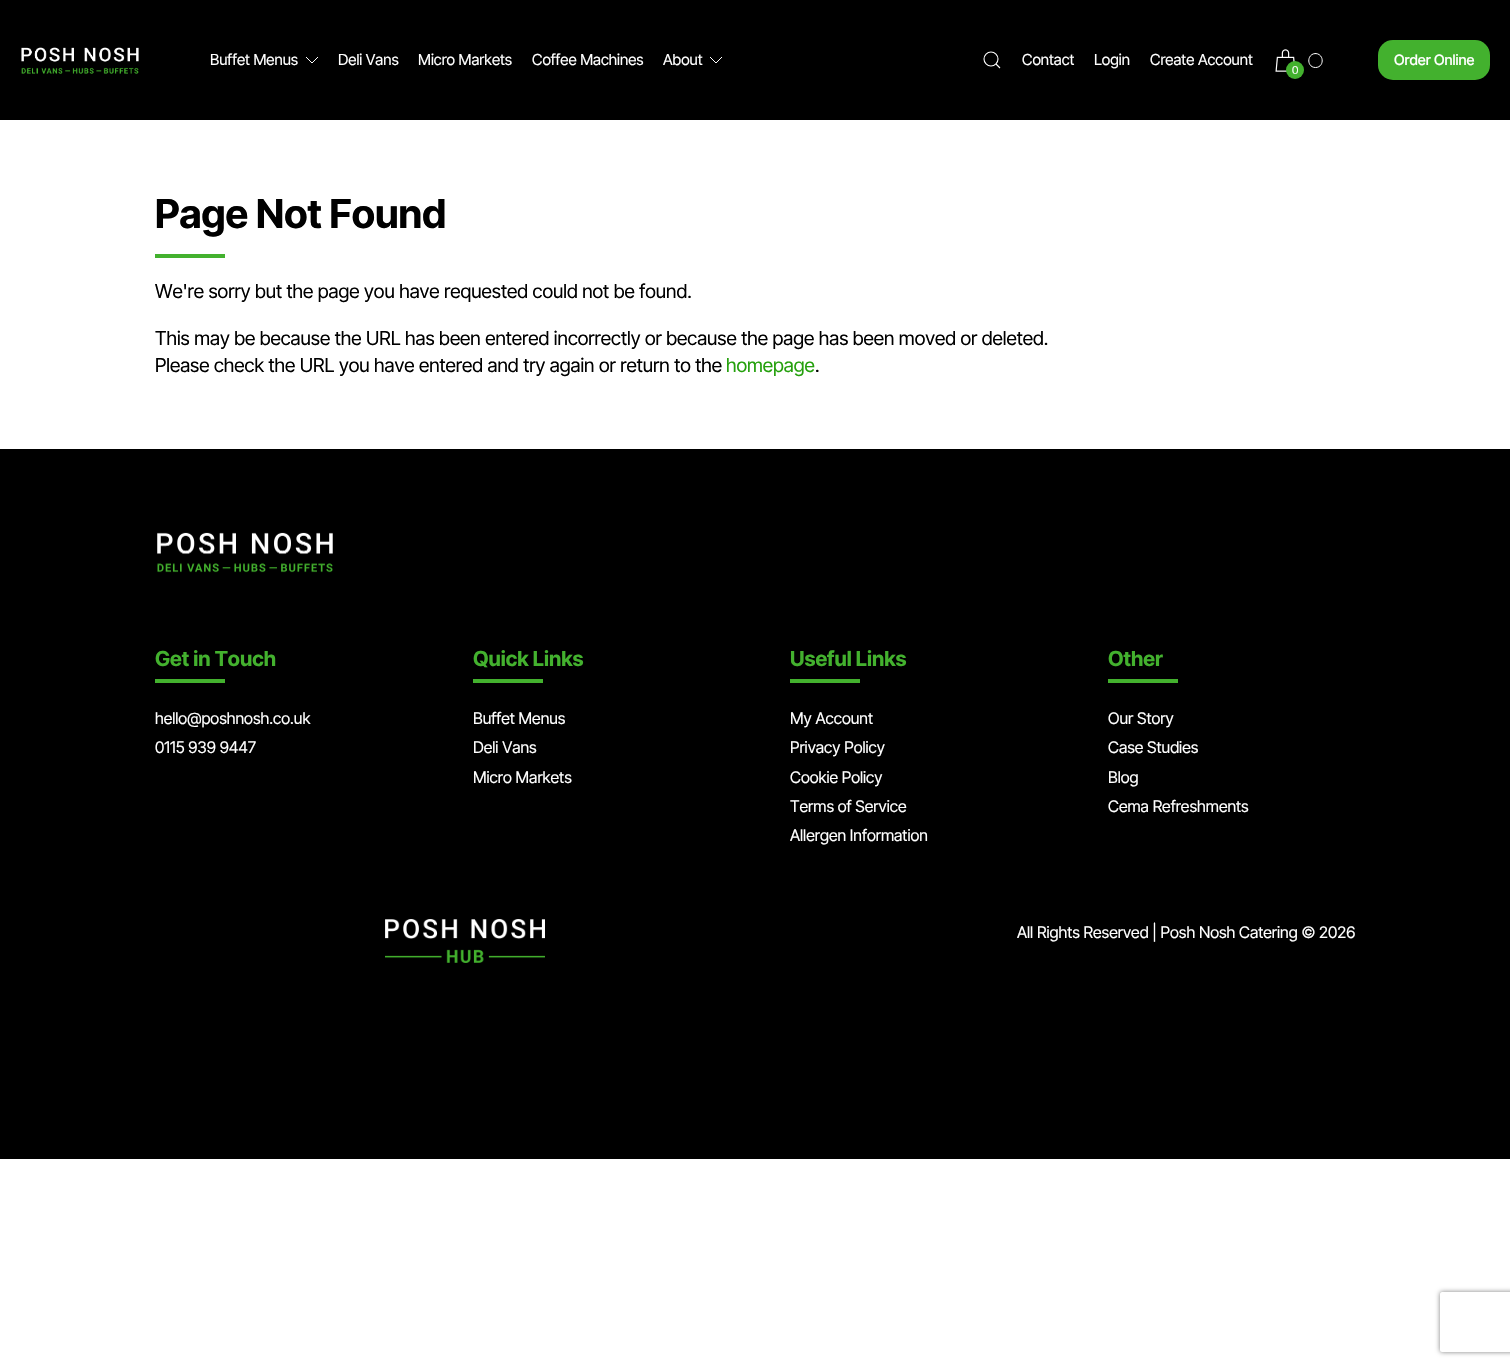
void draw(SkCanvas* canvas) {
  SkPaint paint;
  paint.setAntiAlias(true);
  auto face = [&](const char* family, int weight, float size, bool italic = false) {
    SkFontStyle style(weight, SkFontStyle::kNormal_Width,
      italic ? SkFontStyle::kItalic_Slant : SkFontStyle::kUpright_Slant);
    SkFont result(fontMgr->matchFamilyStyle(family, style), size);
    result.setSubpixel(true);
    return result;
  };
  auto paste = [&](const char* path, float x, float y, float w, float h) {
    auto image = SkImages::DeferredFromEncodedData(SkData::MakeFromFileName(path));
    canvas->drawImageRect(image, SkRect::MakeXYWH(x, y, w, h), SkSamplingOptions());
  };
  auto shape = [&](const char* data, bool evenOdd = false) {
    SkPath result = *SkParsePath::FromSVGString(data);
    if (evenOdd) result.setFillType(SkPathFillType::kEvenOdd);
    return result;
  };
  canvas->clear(0xffffffff);
  paint.setColor(0xff000000);
  canvas->drawRect(SkRect::MakeXYWH(0, 0, 1510, 120), paint);
  paste("img/1.png", 21, 47, 118, 27);
  paint.setStroke(true);
  paint.setStrokeWidth(1);
  paint.setColor(0xffffffff);
  canvas->drawPath(shape("M318 57L312 63L306 57"), paint);
  canvas->drawPath(shape("M722 57L716 63L710 57"), paint);
  paint.setStrokeWidth(1.1f);
  canvas->drawCircle(991, 59, 7, paint);
  canvas->drawPath(shape("M996 64L1000 68Z"), paint);
  paint.setStroke(false);
  paint.setColor(0xff43b12e);
  canvas->drawRoundRect(SkRect::MakeXYWH(1378, 40, 112, 40), 15, 15, paint);
  paste("img/2.png", 1275, 49, 20, 23);
  paint.setStroke(true);
  paint.setStrokeWidth(1);
  paint.setStrokeCap(SkPaint::kRound_Cap);
  paint.setColor(0xffffffff);
  canvas->drawPath(shape("M1315.5 53.5C1324.5 53.5 1324.5 67.5 1315.5 67.5C1306.5 67.5 1306.5 53.5 1315.5 53.5"), paint);
  paint.setStroke(false);
  paint.setColor(0xff43b12e);
  canvas->drawCircle(1295, 70, 9, paint);
  canvas->drawRect(SkRect::MakeXYWH(155, 254, 70, 4), paint);
  paint.setColor(0xff000000);
  canvas->drawRect(SkRect::MakeXYWH(0, 449, 1510, 710), paint);
  paste("img/3.png", 157, 532, 176, 41);
  {
    const struct { float x, y, w, h; SkColor color; } items[] = {
      {155, 679, 70, 4, 0xff43b12e},
      {473, 679, 70, 4, 0xff43b12e},
      {790, 679, 70, 4, 0xff43b12e},
      {1108, 679, 70, 4, 0xff43b12e},
    };
    for (auto [x, y, w, h, color] : items) {
      paint.setColor(color);
      canvas->drawRect(SkRect::MakeXYWH(x, y, w, h), paint);
    }
  }
  paste("img/4.png", 385, 919, 160, 44);
  canvas->save();
  canvas->clipPath(shape("M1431 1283H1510V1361H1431ZM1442 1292H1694C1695 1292 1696 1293 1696 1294V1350C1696 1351 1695 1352 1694 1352H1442C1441 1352 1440 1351 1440 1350V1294C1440 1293 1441 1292 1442 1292Z", true), true);
  paint.setColor(0xff808080);
  paint.setMaskFilter(SkMaskFilter::MakeBlur(kNormal_SkBlurStyle, 2.5f));
  canvas->drawRoundRect(SkRect::MakeXYWH(1440, 1292, 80, 60), 2, 2, paint);
  paint.setMaskFilter(nullptr);
  canvas->restore();
  auto f0 = face("Inter Tight", 400, 15.25f);
  paint.setColor(0xffffffff);
  {
    const struct { const char* s; float x, y; } items[] = {
      {"Buffet Menus", 210, 65},
      {"Deli Vans", 338, 65},
      {"Micro Markets", 418, 65},
      {"Coffee Machines", 532, 65},
      {"About", 663, 65},
      {"Contact", 1022, 65},
      {"Login", 1094, 65},
      {"Create Account", 1150, 65},
    };
    for (auto [s, x, y] : items) {
      canvas->drawString(s, x, y, f0, paint);
    }
  }
  auto f1 = face("Inter Tight", 500, 14.5f);
  canvas->drawString("Order Online", 1394, 65, f1, paint);
  auto f2 = face("Inter Tight", 400, 11);
  canvas->drawString("0", 1292, 74, f2, paint);
  auto f3 = face("Inter Tight", 700, 40);
  paint.setColor(0xff000000);
  canvas->drawString("Page Not Found", 155, 228, f3, paint);
  auto f4 = face("Inter Tight", 400, 19.2f);
  {
    const struct { const char* s; float x, y; } items[] = {
      {"We're sorry but the page you have requested could not be found.", 155, 298},
      {"This may be because the URL has been entered incorrectly or because the page has been moved or deleted.", 155, 345},
      {"Please check the URL you have entered and try again or return to the", 155, 372},
    };
    for (auto [s, x, y] : items) {
      canvas->drawString(s, x, y, f4, paint);
    }
  }
  paint.setColor(0xff24a00c);
  canvas->drawString("homepage", 726, 372, f4, paint);
  paint.setColor(0xff000000);
  canvas->drawString(".", 815, 372, f4, paint);
  auto f5 = face("Inter Tight", 700, 20.75f);
  paint.setColor(0xff43b12e);
  canvas->drawString("Get in Touch", 155, 666, f5, paint);
  auto f6 = face("Inter Tight", 400, 16);
  paint.setColor(0xffffffff);
  canvas->drawString("hello@poshnosh.co.uk", 155, 724, f6, paint);
  canvas->drawString("0115 939 9447", 155, 753, f6, paint);
  paint.setColor(0xff43b12e);
  canvas->drawString("Quick Links", 473, 666, f5, paint);
  paint.setColor(0xffffffff);
  {
    const struct { const char* s; float x, y; } items[] = {
      {"Buffet Menus", 473, 724},
      {"Deli Vans", 473, 753},
      {"Micro Markets", 473, 783},
    };
    for (auto [s, x, y] : items) {
      canvas->drawString(s, x, y, f6, paint);
    }
  }
  paint.setColor(0xff43b12e);
  canvas->drawString("Useful Links", 790, 666, f5, paint);
  paint.setColor(0xffffffff);
  {
    const struct { const char* s; float x, y; } items[] = {
      {"My Account", 790, 724},
      {"Privacy Policy", 790, 753},
      {"Cookie Policy", 790, 783},
      {"Terms of Service", 790, 812},
      {"Allergen Information", 790, 841},
    };
    for (auto [s, x, y] : items) {
      canvas->drawString(s, x, y, f6, paint);
    }
  }
  paint.setColor(0xff43b12e);
  canvas->drawString("Other", 1108, 666, f5, paint);
  paint.setColor(0xffffffff);
  {
    const struct { const char* s; float x, y; } items[] = {
      {"Our Story", 1108, 724},
      {"Case Studies", 1108, 753},
      {"Blog", 1108, 783},
      {"Cema Refreshments", 1108, 812},
      {"All Rights Reserved | Posh Nosh Catering © 2026", 1017, 938},
    };
    for (auto [s, x, y] : items) {
      canvas->drawString(s, x, y, f6, paint);
    }
  }
}
